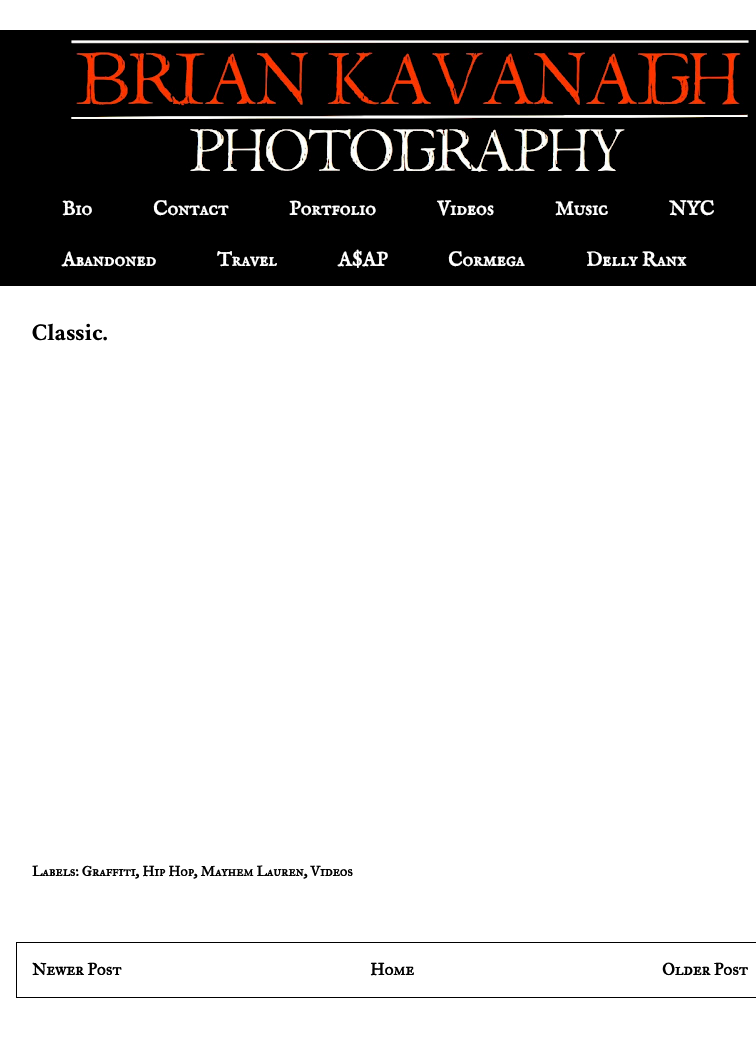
void draw(SkCanvas* canvas) {
  SkPaint paint;
  paint.setAntiAlias(true);
  auto face = [&](const char* family, int weight, float size, bool italic = false) {
    SkFontStyle style(weight, SkFontStyle::kNormal_Width,
      italic ? SkFontStyle::kItalic_Slant : SkFontStyle::kUpright_Slant);
    SkFont result(fontMgr->matchFamilyStyle(family, style), size);
    result.setSubpixel(true);
    return result;
  };
  auto paste = [&](const char* path, float x, float y, float w, float h) {
    auto image = SkImages::DeferredFromEncodedData(SkData::MakeFromFileName(path));
    canvas->drawImageRect(image, SkRect::MakeXYWH(x, y, w, h), SkSamplingOptions());
  };
  canvas->clear(0xffffffff);
  paint.setColor(0xff000000);
  canvas->drawRect(SkRect::MakeXYWH(0, 30, 756, 256), paint);
  paste("img/1.png", 71, 40, 678, 134);
  paint.setStroke(true);
  paint.setStrokeWidth(1);
  canvas->drawRect(SkRect::MakeXYWH(16.5f, 942.5f, 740, 55), paint);
  auto f0 = face("IM FELL English SC", 700, 20);
  paint.setStroke(false);
  paint.setColor(0xffffffff);
  {
    const struct { const char* s; float x, y; } items[] = {
      {"Bio", 62, 215},
      {"Contact", 153, 215},
      {"Portfolio", 289, 215},
      {"Videos", 437, 215},
      {"Music", 555, 215},
      {"NYC", 669, 215},
      {"Abandoned", 62, 266},
      {"Travel", 217, 266},
      {"A$AP", 338, 266},
      {"Cormega", 448, 266},
      {"Delly Ranx", 586, 266},
    };
    for (auto [s, x, y] : items) {
      canvas->drawString(s, x, y, f0, paint);
    }
  }
  auto f1 = face("Crimson Text", 700, 24);
  paint.setColor(0xff000000);
  canvas->drawString("Classic.", 32, 340, f1, paint);
  auto f2 = face("IM FELL Great Primer SC", 700, 14);
  canvas->drawString("Labels: Graffiti, Hip Hop, Mayhem Lauren, Videos", 32, 876, f2, paint);
  auto f3 = face("IM FELL Great Primer SC", 700, 16.75f);
  {
    const struct { const char* s; float x, y; } items[] = {
      {"Newer Post", 32, 975},
      {"Home", 370, 975},
      {"Older Post", 662, 975},
    };
    for (auto [s, x, y] : items) {
      canvas->drawString(s, x, y, f3, paint);
    }
  }
}
